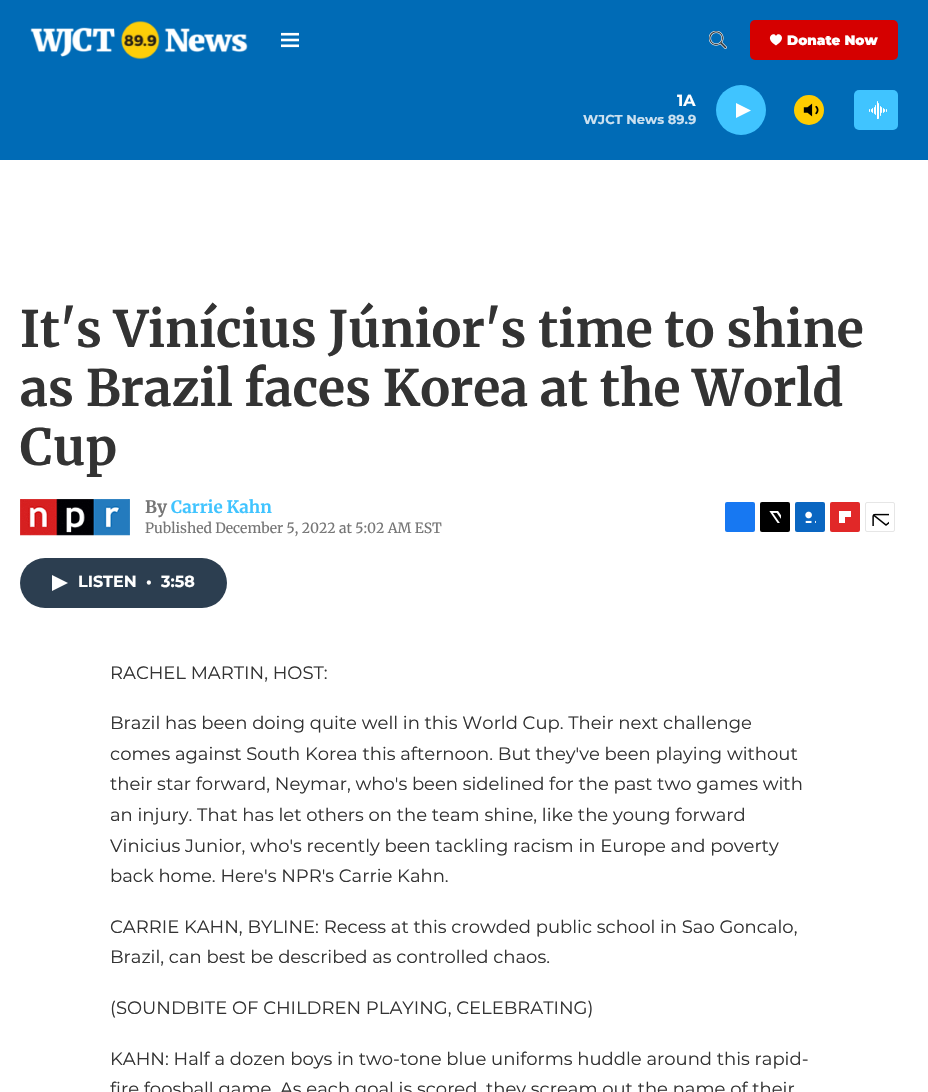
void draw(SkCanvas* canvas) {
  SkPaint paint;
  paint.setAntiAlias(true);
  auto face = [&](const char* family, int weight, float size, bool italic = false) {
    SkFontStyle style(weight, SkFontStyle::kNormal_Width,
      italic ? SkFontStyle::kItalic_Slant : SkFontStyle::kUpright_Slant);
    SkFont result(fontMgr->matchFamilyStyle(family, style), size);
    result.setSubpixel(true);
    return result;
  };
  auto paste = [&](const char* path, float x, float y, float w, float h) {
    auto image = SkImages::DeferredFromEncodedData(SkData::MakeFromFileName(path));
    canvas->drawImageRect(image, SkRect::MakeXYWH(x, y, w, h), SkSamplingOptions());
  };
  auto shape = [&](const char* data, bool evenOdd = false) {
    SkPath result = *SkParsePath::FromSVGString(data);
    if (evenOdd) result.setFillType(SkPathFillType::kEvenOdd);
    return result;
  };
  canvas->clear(0xffffffff);
  paint.setColor(0xff006bb6);
  canvas->drawRect(SkRect::MakeXYWH(0, 0, 928, 160), paint);
  paste("img/1.png", 30, 21, 218, 39);
  paste("img/2.png", 281, 32, 18, 16);
  paste("img/3.png", 709, 31, 18, 18);
  paint.setColor(0xffd50000);
  canvas->drawRoundRect(SkRect::MakeXYWH(750, 20, 148, 40), 5, 5, paint);
  paint.setColor(0xffffffff);
  canvas->drawPath(shape("M776 36C774 31 763.5 38 776 45.5C788.5 38 778 31 776 36Z"), paint);
  paint.setColor(0xff40c4ff);
  canvas->drawCircle(741, 110, 25, paint);
  paint.setColor(0xffffffff);
  canvas->drawPath(shape("M736 103L751 110.5L736 118Z"), paint);
  paint.setColor(0xffffcc00);
  canvas->drawCircle(809, 110, 15, paint);
  paste("img/4.png", 803, 103, 16, 14);
  paint.setColor(0xff40c4ff);
  canvas->drawRoundRect(SkRect::MakeXYWH(854, 90, 44, 40), 5, 5, paint);
  paste("img/5.png", 869, 101, 18, 18);
  paste("img/6.png", 20, 499, 110, 37);
  paint.setColor(0xff1778f2);
  canvas->drawRoundRect(SkRect::MakeXYWH(725, 502, 30, 30), 2, 2, paint);
  paint.setColor(0xff000000);
  canvas->drawRoundRect(SkRect::MakeXYWH(760, 502, 30, 30), 2, 2, paint);
  paste("img/7.png", 769, 511, 12, 12);
  paint.setColor(0xff0a66c1);
  canvas->drawRoundRect(SkRect::MakeXYWH(795, 502, 30, 30), 2, 2, paint);
  paste("img/8.png", 805, 511, 11, 12);
  paint.setColor(0xffe12828);
  canvas->drawRoundRect(SkRect::MakeXYWH(830, 502, 30, 30), 2, 2, paint);
  paste("img/9.png", 839, 511, 12, 12);
  paint.setStroke(true);
  paint.setStrokeWidth(1);
  paint.setColor(0xffe6e6e6);
  canvas->drawRoundRect(SkRect::MakeXYWH(865.5f, 502.5f, 29, 29), 1.5f, 1.5f, paint);
  paste("img/10.png", 872, 513, 17, 13);
  paint.setStroke(false);
  paint.setColor(0xff2c3e50);
  canvas->drawRoundRect(SkRect::MakeXYWH(20, 558, 207, 50), 25, 25, paint);
  paint.setColor(0xffffffff);
  canvas->drawPath(shape("M52 575L68 583L52 591Z"), paint);
  auto f0 = face("Montserrat", 900, 13.5f);
  canvas->drawString("Donate Now", 787, 45, f0, paint);
  auto f1 = face("Montserrat", 700, 16);
  canvas->drawString("1A", 677, 106, f1, paint);
  auto f2 = face("Montserrat", 700, 13);
  paint.setColor(0xffcce1f0);
  canvas->drawString("WJCT News 89.9", 583, 124, f2, paint);
  auto f3 = face("Merriweather", 700, 50);
  paint.setColor(0xff333333);
  {
    const struct { const char* s; float x, y; } items[] = {
      {"It's Vinícius Júnior's time to shine", 20, 347},
      {"as Brazil faces Korea at the World", 20, 406},
      {"Cup", 20, 465},
    };
    for (auto [s, x, y] : items) {
      canvas->drawString(s, x, y, f3, paint);
    }
  }
  auto f4 = face("Merriweather", 700, 17);
  paint.setColor(0xff767676);
  canvas->drawString("By", 145, 513, f4, paint);
  paint.setColor(0xff40c4ff);
  canvas->drawString("Carrie Kahn", 171, 513, f4, paint);
  auto f5 = face("Merriweather", 400, 14);
  paint.setColor(0xff767676);
  canvas->drawString("Published December 5, 2022 at 5:02 AM EST", 145, 533, f5, paint);
  paint.setColor(0xffffffff);
  {
    const struct { const char* s; float x, y; } items[] = {
      {"LISTEN", 78, 587},
      {"•", 146, 587},
      {"3:58", 161, 587},
    };
    for (auto [s, x, y] : items) {
      canvas->drawString(s, x, y, f1, paint);
    }
  }
  auto f6 = face("Montserrat", 400, 18);
  paint.setColor(0xff333333);
  {
    const struct { const char* s; float x, y; } items[] = {
      {"RACHEL MARTIN, HOST:", 110, 679},
      {"Brazil has been doing quite well in this World Cup. Their next challenge", 110, 729},
      {"comes against South Korea this afternoon. But they've been playing without", 110, 760},
      {"their star forward, Neymar, who's been sidelined for the past two games with", 110, 790},
      {"an injury. That has let others on the team shine, like the young forward", 110, 821},
      {"Vinicius Junior, who's recently been tackling racism in Europe and poverty", 110, 852},
      {"back home. Here's NPR's Carrie Kahn.", 110, 882},
      {"CARRIE KAHN, BYLINE: Recess at this crowded public school in Sao Goncalo,", 110, 933},
      {"Brazil, can best be described as controlled chaos.", 110, 963},
      {"(SOUNDBITE OF CHILDREN PLAYING, CELEBRATING)", 110, 1014},
      {"KAHN: Half a dozen boys in two-tone blue uniforms huddle around this rapid-", 110, 1065},
      {"fire foosball game. As each goal is scored, they scream out the name of their", 110, 1095},
    };
    for (auto [s, x, y] : items) {
      canvas->drawString(s, x, y, f6, paint);
    }
  }
}
